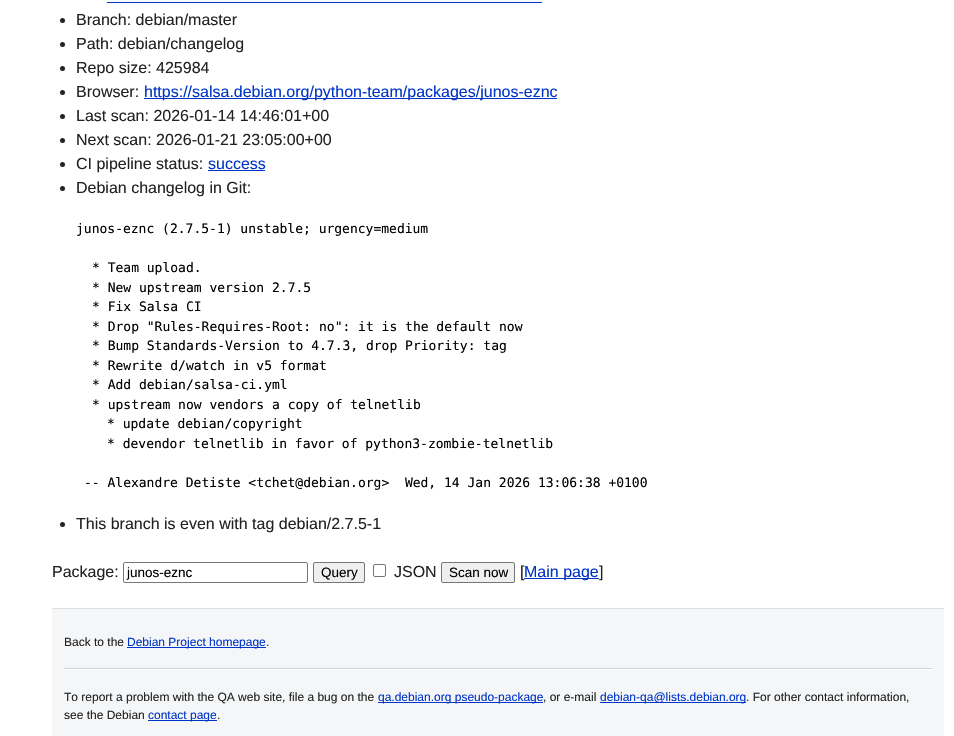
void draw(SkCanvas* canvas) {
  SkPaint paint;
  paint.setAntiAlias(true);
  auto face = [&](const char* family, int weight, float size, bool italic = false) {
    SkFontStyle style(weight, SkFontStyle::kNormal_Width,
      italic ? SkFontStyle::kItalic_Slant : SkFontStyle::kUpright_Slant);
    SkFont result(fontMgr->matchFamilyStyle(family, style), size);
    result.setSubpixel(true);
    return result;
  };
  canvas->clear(0xffffffff);
  paint.setColor(0xff0035c7);
  canvas->drawRect(SkRect::MakeXYWH(107, 2, 435, 1), paint);
  paint.setColor(0xff222222);
  canvas->drawCircle(62.5f, 20.5f, 2.5f, paint);
  canvas->drawCircle(62.5f, 44.5f, 2.5f, paint);
  canvas->drawCircle(62.5f, 68.5f, 2.5f, paint);
  canvas->drawCircle(62.5f, 92.5f, 2.5f, paint);
  paint.setColor(0xff0035c7);
  canvas->drawRect(SkRect::MakeXYWH(144, 98, 413, 1), paint);
  paint.setColor(0xff222222);
  canvas->drawCircle(62.5f, 116.5f, 2.5f, paint);
  canvas->drawCircle(62.5f, 140.5f, 2.5f, paint);
  canvas->drawCircle(62.5f, 164.5f, 2.5f, paint);
  paint.setColor(0xff0035c7);
  canvas->drawRect(SkRect::MakeXYWH(208, 170, 57, 1), paint);
  paint.setColor(0xff222222);
  canvas->drawCircle(62.5f, 188.5f, 2.5f, paint);
  canvas->drawCircle(62.5f, 524.5f, 2.5f, paint);
  paint.setStroke(true);
  paint.setStrokeWidth(1);
  paint.setColor(0xff767676);
  canvas->drawRoundRect(SkRect::MakeXYWH(123.5f, 562.5f, 184, 20), 1.5f, 1.5f, paint);
  paint.setStroke(false);
  paint.setColor(0xffefefef);
  canvas->drawRoundRect(SkRect::MakeXYWH(313.5f, 562.5f, 51, 20), 1.5f, 1.5f, paint);
  paint.setStroke(true);
  paint.setColor(0xff767676);
  canvas->drawRoundRect(SkRect::MakeXYWH(313.5f, 562.5f, 51, 20), 1.5f, 1.5f, paint);
  canvas->drawRoundRect(SkRect::MakeXYWH(373.5f, 564.5f, 12, 12), 1.5f, 1.5f, paint);
  paint.setStroke(false);
  paint.setColor(0xffefefef);
  canvas->drawRoundRect(SkRect::MakeXYWH(441.5f, 562.5f, 73, 20), 1.5f, 1.5f, paint);
  paint.setStroke(true);
  paint.setColor(0xff767676);
  canvas->drawRoundRect(SkRect::MakeXYWH(441.5f, 562.5f, 73, 20), 1.5f, 1.5f, paint);
  paint.setStroke(false);
  {
    const struct { float x, y, w, h; SkColor color; } items[] = {
      {52, 609, 892, 127, 0xfff5f6f7},
      {52, 608, 892, 1, 0xffdfdfe0},
      {127, 647, 139, 1, 0xff0035c7},
      {64, 668, 868, 1, 0xffd2d3d7},
      {64, 669, 868, 1, 0xffffffff},
      {378, 702, 165, 1, 0xff0035c7},
      {600, 702, 146, 1, 0xff0035c7},
      {148, 720, 69, 1, 0xff0035c7},
    };
    for (auto [x, y, w, h, color] : items) {
      paint.setColor(color);
      canvas->drawRect(SkRect::MakeXYWH(x, y, w, h), paint);
    }
  }
  auto f0 = face("Liberation Sans", 400, 16);
  paint.setColor(0xff222222);
  {
    const struct { const char* s; float x, y; } items[] = {
      {"Branch: debian/master", 76, 25},
      {"Path: debian/changelog", 76, 49},
      {"Repo size: 425984", 76, 73},
      {"Browser:", 76, 97},
    };
    for (auto [s, x, y] : items) {
      canvas->drawString(s, x, y, f0, paint);
    }
  }
  paint.setColor(0xff0035c7);
  canvas->drawString("https://salsa.debian.org/python-team/packages/junos-eznc", 144, 97, f0, paint);
  paint.setColor(0xff222222);
  {
    const struct { const char* s; float x, y; } items[] = {
      {"Last scan: 2026-01-14 14:46:01+00", 76, 121},
      {"Next scan: 2026-01-21 23:05:00+00", 76, 145},
      {"CI pipeline status:", 76, 169},
    };
    for (auto [s, x, y] : items) {
      canvas->drawString(s, x, y, f0, paint);
    }
  }
  paint.setColor(0xff0035c7);
  canvas->drawString("success", 208, 169, f0, paint);
  paint.setColor(0xff222222);
  canvas->drawString("Debian changelog in Git:", 76, 193, f0, paint);
  auto f1 = face("DejaVu Sans Mono", 400, 13);
  paint.setColor(0xff000000);
  {
    const struct { const char* s; float x, y; } items[] = {
      {"junos-eznc (2.7.5-1) unstable; urgency=medium", 76, 233},
      {"* Team upload.", 92, 272},
      {"* New upstream version 2.7.5", 92, 292},
      {"* Fix Salsa CI", 92, 311},
      {"* Drop \"Rules-Requires-Root: no\": it is the default now", 92, 331},
      {"* Bump Standards-Version to 4.7.3, drop Priority: tag", 92, 350},
      {"* Rewrite d/watch in v5 format", 92, 370},
      {"* Add debian/salsa-ci.yml", 92, 389},
      {"* upstream now vendors a copy of telnetlib", 92, 409},
      {"* update debian/copyright", 107, 428},
      {"* devendor telnetlib in favor of python3-zombie-telnetlib", 107, 448},
      {"-- Alexandre Detiste <tchet@debian.org>  Wed, 14 Jan 2026 13:06:38 +0100", 84, 487},
    };
    for (auto [s, x, y] : items) {
      canvas->drawString(s, x, y, f1, paint);
    }
  }
  paint.setColor(0xff222222);
  canvas->drawString("This branch is even with tag debian/2.7.5-1", 76, 529, f0, paint);
  canvas->drawString("Package:", 52, 577, f0, paint);
  auto f2 = face("Liberation Sans", 400, 13.5f);
  paint.setColor(0xff000000);
  canvas->drawString("junos-eznc", 127, 577, f2, paint);
  canvas->drawString("Query", 321, 577, f2, paint);
  paint.setColor(0xff222222);
  canvas->drawString("JSON", 394, 577, f0, paint);
  paint.setColor(0xff000000);
  canvas->drawString("Scan now", 449, 577, f2, paint);
  paint.setColor(0xff222222);
  canvas->drawString("[", 520, 577, f0, paint);
  paint.setColor(0xff0035c7);
  canvas->drawRect(SkRect::MakeXYWH(524, 578, 75, 1), paint);
  canvas->drawString("Main page", 524, 577, f0, paint);
  paint.setColor(0xff222222);
  canvas->drawString("]", 599, 577, f0, paint);
  auto f3 = face("Liberation Sans", 400, 12);
  canvas->drawString("Back to the", 64, 646, f3, paint);
  paint.setColor(0xff0035c7);
  canvas->drawString("Debian Project homepage", 127, 646, f3, paint);
  paint.setColor(0xff222222);
  canvas->drawString(".", 266, 646, f3, paint);
  canvas->drawString("To report a problem with the QA web site, file a bug on the", 64, 701, f3, paint);
  paint.setColor(0xff0035c7);
  canvas->drawString("qa.debian.org pseudo-package", 378, 701, f3, paint);
  paint.setColor(0xff222222);
  canvas->drawString(", or e-mail", 543, 701, f3, paint);
  paint.setColor(0xff0035c7);
  canvas->drawString("debian-qa@lists.debian.org", 600, 701, f3, paint);
  paint.setColor(0xff222222);
  canvas->drawString(". For other contact information,", 746, 701, f3, paint);
  canvas->drawString("see the Debian", 64, 719, f3, paint);
  paint.setColor(0xff0035c7);
  canvas->drawString("contact page", 148, 719, f3, paint);
  paint.setColor(0xff222222);
  canvas->drawString(".", 217, 719, f3, paint);
}
